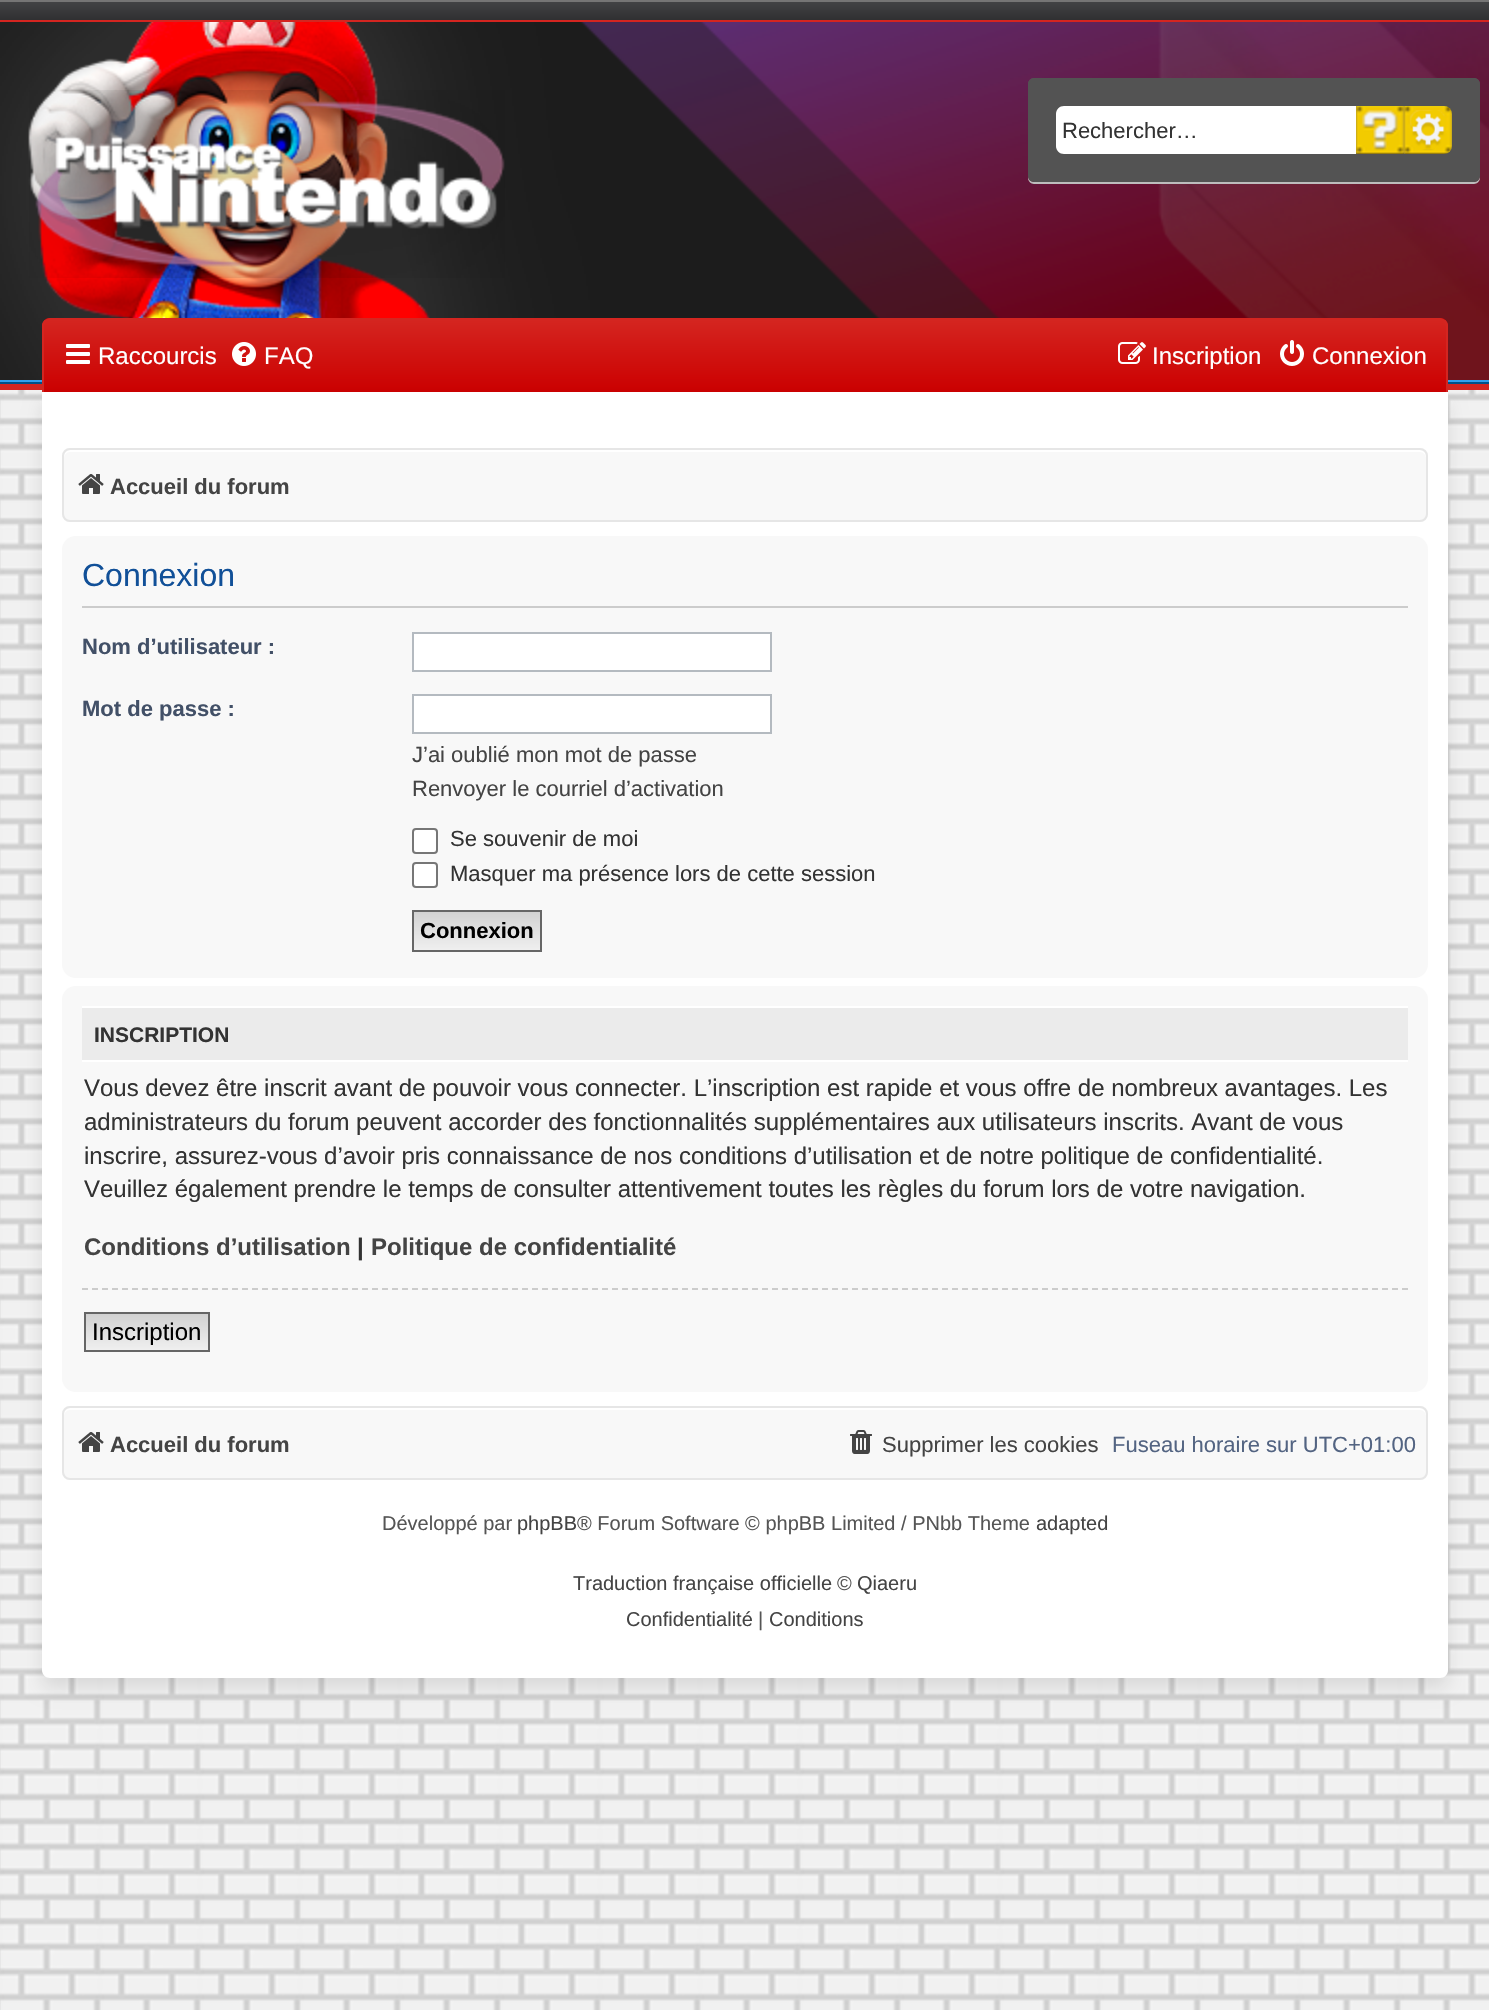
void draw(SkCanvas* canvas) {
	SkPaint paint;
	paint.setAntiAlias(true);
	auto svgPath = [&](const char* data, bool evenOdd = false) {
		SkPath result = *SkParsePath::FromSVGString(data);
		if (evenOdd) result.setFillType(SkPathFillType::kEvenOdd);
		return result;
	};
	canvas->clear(0xffffffff);
	canvas->drawImageRect(SkImages::DeferredFromEncodedData(SkData::MakeFromFileName("img1.png")), SkRect::MakeXYWH(0, 1680, 1489, 330), SkSamplingOptions());
	canvas->drawImageRect(SkImages::DeferredFromEncodedData(SkData::MakeFromFileName("img2.png")), SkRect::MakeXYWH(0, 390, 1489, 1290), SkSamplingOptions());
	{
		const SkColor colors[] = {0xff444547, 0xff2f2f31};
		const float stops[] = {0, 1};
		const SkPoint ends[] = {{745, 0}, {745, 20}};
		paint.setShader(SkGradientShader::MakeLinear(ends, colors, stops, 2, SkTileMode::kClamp));
		paint.setAlpha(255);
	}
	canvas->drawRect(SkRect::MakeXYWH(0, 2, 1489, 18), paint);
	paint.setShader(nullptr);
	paint.setColor(0xff757575);
	canvas->drawRect(SkRect::MakeXYWH(0, 0, 1489, 2), paint);
	paint.setColor(0xffd42520);
	canvas->drawRect(SkRect::MakeXYWH(0, 20, 1489, 2), paint);
	canvas->drawImageRect(SkImages::DeferredFromEncodedData(SkData::MakeFromFileName("img3.png")), SkRect::MakeXYWH(0, 22, 1489, 358), SkSamplingOptions());
	canvas->drawRect(SkRect::MakeXYWH(0, 384, 1489, 6), paint);
	paint.setColor(0xff33a0ed);
	canvas->drawRect(SkRect::MakeXYWH(0, 380, 1489, 2), paint);
	paint.setColor(0xff005189);
	canvas->drawRect(SkRect::MakeXYWH(0, 382, 1489, 2), paint);
	canvas->drawImageRect(SkImages::DeferredFromEncodedData(SkData::MakeFromFileName("img4.png")), SkRect::MakeXYWH(29, 90, 476, 188), SkSamplingOptions());
	paint.setColor(0xffbdbdbd);
	canvas->drawPath(svgPath("M1028 176V178C1028 181 1031 184 1034 184H1474C1477 184 1480 181 1480 178V176C1480 179 1477 182 1474 182H1034C1031 182 1028 179 1028 176Z"), paint);
	paint.setColor(0xff535353);
	canvas->drawRoundRect(SkRect::MakeXYWH(1028, 78, 452, 104), 6, 6, paint);
	canvas->drawPath(svgPath("M1034 80H1474C1477 80 1480 83 1480 86V84C1480 81 1477 78 1474 78H1034C1031 78 1028 81 1028 84V86C1028 83 1031 80 1034 80Z"), paint);
	paint.setColor(0xffffffff);
	canvas->drawPath(svgPath("M1064 106H1356V154H1064C1059.5 154 1056 150.5 1056 146V114C1056 109.5 1059.5 106 1064 106Z"), paint);
	SkFont f1(fontMgr->matchFamilyStyle("Liberation Sans", SkFontStyle::Normal()), 22);
	f1.setSubpixel(true);
	paint.setColor(0xff333333);
	canvas->drawString("Rechercher…", 1062, 138, f1, paint);
	canvas->drawImageRect(SkImages::DeferredFromEncodedData(SkData::MakeFromFileName("img5.png")), SkRect::MakeXYWH(1356, 106, 48, 48), SkSamplingOptions());
	canvas->drawImageRect(SkImages::DeferredFromEncodedData(SkData::MakeFromFileName("img6.png")), SkRect::MakeXYWH(1404, 106, 48, 48), SkSamplingOptions());
	canvas->save();
	canvas->clipPath(svgPath("M50 318H1440C1444.5 318 1448 321.5 1448 326V392H42V326C42 321.5 45.5 318 50 318Z"), true);
	{
		const SkColor colors[] = {0xffd42520, 0xffcc0000};
		const float stops[] = {0, 1};
		const SkPoint ends[] = {{745, 248}, {745, 320}};
		paint.setShader(SkGradientShader::MakeLinear(ends, colors, stops, 2, SkTileMode::kClamp));
		paint.setAlpha(255);
	}
	canvas->drawRect(SkRect::MakeXYWH(42, 318, 1406, 2), paint);
	{
		const SkColor colors[] = {0xffd42520, 0xffcc0000};
		const float stops[] = {0, 1};
		const SkPoint ends[] = {{745, 320}, {745, 392}};
		paint.setShader(SkGradientShader::MakeLinear(ends, colors, stops, 2, SkTileMode::kClamp));
		paint.setAlpha(255);
	}
	canvas->drawRect(SkRect::MakeXYWH(42, 320, 1406, 72), paint);
	canvas->restore();
	paint.setShader(nullptr);
	paint.setColor(0xffd42520);
	canvas->drawPath(svgPath("M50 318H1440C1444 318 1448 322 1448 326V392H42V326C42 322 46 318 50 318ZM50 320H1440C1443 320 1446 323 1446 326V392H44V326C44 323 47 320 50 320Z", true), paint);
	canvas->drawImageRect(SkImages::DeferredFromEncodedData(SkData::MakeFromFileName("img7.png")), SkRect::MakeXYWH(66, 344, 24, 20), SkSamplingOptions());
	SkFont f2(fontMgr->matchFamilyStyle("Liberation Sans", SkFontStyle::Normal()), 24);
	f2.setSubpixel(true);
	paint.setColor(0xffffffff);
	canvas->drawString("Raccourcis", 98, 364, f2, paint);
	canvas->drawImageRect(SkImages::DeferredFromEncodedData(SkData::MakeFromFileName("img8.png")), SkRect::MakeXYWH(232, 342, 24, 24), SkSamplingOptions());
	canvas->drawString("FAQ", 264, 364, f2, paint);
	canvas->drawImageRect(SkImages::DeferredFromEncodedData(SkData::MakeFromFileName("img9.png")), SkRect::MakeXYWH(1118, 342, 28, 22), SkSamplingOptions());
	canvas->drawString("Inscription", 1152, 364, f2, paint);
	canvas->drawImageRect(SkImages::DeferredFromEncodedData(SkData::MakeFromFileName("img10.png")), SkRect::MakeXYWH(1280, 340, 24, 26), SkSamplingOptions());
	canvas->drawString("Connexion", 1312, 364, f2, paint);
	paint.setColor(0x1a000000);
	paint.setMaskFilter(SkMaskFilter::MakeBlur(kNormal_SkBlurStyle, 9));
	canvas->drawRoundRect(SkRect::MakeXYWH(42, 402, 1406, 1286), 8, 8, paint);
	paint.setMaskFilter(nullptr);
	paint.setColor(0xffffffff);
	canvas->drawPath(svgPath("M42 392H1448V1670C1448 1674.5 1444.5 1678 1440 1678H50C45.5 1678 42 1674.5 42 1670Z"), paint);
	paint.setColor(0xfff8f8f8);
	canvas->drawRoundRect(SkRect::MakeXYWH(62, 448, 1366, 74), 8, 8, paint);
	paint.setColor(0xffffffff);
	canvas->drawPath(svgPath("M70 452H1420C1423 452 1426 455 1426 458V456C1426 453 1423 450 1420 450H70C67 450 64 453 64 456V458C64 455 67 452 70 452Z"), paint);
	paint.setStroke(true);
	paint.setStrokeWidth(2);
	paint.setColor(0xffe6e6e6);
	canvas->drawRoundRect(SkRect::MakeXYWH(63, 449, 1364, 72), 7, 7, paint);
	canvas->drawImageRect(SkImages::DeferredFromEncodedData(SkData::MakeFromFileName("img11.png")), SkRect::MakeXYWH(78, 474, 26, 20), SkSamplingOptions());
	SkFont f3(fontMgr->matchFamilyStyle("Liberation Sans", SkFontStyle::Bold()), 22);
	f3.setSubpixel(true);
	paint.setStroke(false);
	paint.setColor(0xff444444);
	canvas->drawString("Accueil du forum", 110, 494, f3, paint);
	paint.setColor(0xfff8f8f8);
	canvas->drawRoundRect(SkRect::MakeXYWH(62, 536, 1366, 442), 14, 14, paint);
	paint.setColor(0xffcccccc);
	canvas->drawRect(SkRect::MakeXYWH(82, 606, 1326, 2), paint);
	SkFont f4(fontMgr->matchFamilyStyle("Liberation Sans", SkFontStyle::Normal()), 32);
	f4.setSubpixel(true);
	paint.setColor(0xff115098);
	canvas->drawString("Connexion", 82, 586, f4, paint);
	paint.setColor(0xff425067);
	canvas->drawString("Nom d’utilisateur :", 82, 654, f3, paint);
	paint.setColor(0xffffffff);
	canvas->drawRect(SkRect::MakeXYWH(413, 633, 358, 38), paint);
	paint.setStroke(true);
	paint.setColor(0xffb4bac0);
	canvas->drawRect(SkRect::MakeXYWH(413, 633, 358, 38), paint);
	paint.setStroke(false);
	paint.setColor(0xff425067);
	canvas->drawString("Mot de passe :", 82, 716, f3, paint);
	paint.setColor(0xffffffff);
	canvas->drawRect(SkRect::MakeXYWH(413, 695, 358, 38), paint);
	paint.setStroke(true);
	paint.setColor(0xffb4bac0);
	canvas->drawRect(SkRect::MakeXYWH(413, 695, 358, 38), paint);
	paint.setStroke(false);
	paint.setColor(0xff444444);
	canvas->drawString("J’ai oublié mon mot de passe", 412, 762, f1, paint);
	canvas->drawString("Renvoyer le courriel d’activation", 412, 796, f1, paint);
	paint.setColor(0xffffffff);
	canvas->drawRoundRect(SkRect::MakeXYWH(413, 829, 24, 24), 3, 3, paint);
	paint.setStroke(true);
	paint.setColor(0xff767676);
	canvas->drawRoundRect(SkRect::MakeXYWH(413, 829, 24, 24), 3, 3, paint);
	paint.setStroke(false);
	paint.setColor(0xff333333);
	canvas->drawString("Se souvenir de moi", 450, 846, f1, paint);
	paint.setColor(0xffffffff);
	canvas->drawRoundRect(SkRect::MakeXYWH(413, 863, 24, 24), 3, 3, paint);
	paint.setStroke(true);
	paint.setColor(0xff767676);
	canvas->drawRoundRect(SkRect::MakeXYWH(413, 863, 24, 24), 3, 3, paint);
	paint.setStroke(false);
	paint.setColor(0xff333333);
	canvas->drawString("Masquer ma présence lors de cette session", 450, 881, f1, paint);
	{
		const SkColor colors[] = {0xffd2d2d2, 0xffefefef};
		const float stops[] = {0, 1};
		const SkPoint ends[] = {{477, 912}, {477, 950}};
		paint.setShader(SkGradientShader::MakeLinear(ends, colors, stops, 2, SkTileMode::kClamp));
		paint.setAlpha(255);
	}
	canvas->drawRect(SkRect::MakeXYWH(414, 912, 126, 38), paint);
	paint.setStroke(true);
	paint.setShader(nullptr);
	paint.setColor(0xff666666);
	canvas->drawRect(SkRect::MakeXYWH(413, 911, 128, 40), paint);
	paint.setStroke(false);
	paint.setColor(0xff000000);
	canvas->drawString("Connexion", 420, 938, f3, paint);
	paint.setColor(0xfff8f8f8);
	canvas->drawRoundRect(SkRect::MakeXYWH(62, 986, 1366, 406), 14, 14, paint);
	paint.setColor(0xffebebeb);
	canvas->drawRect(SkRect::MakeXYWH(82, 1008, 1326, 52), paint);
	paint.setColor(0xffffffff);
	canvas->drawRect(SkRect::MakeXYWH(82, 1006, 1326, 2), paint);
	canvas->drawRect(SkRect::MakeXYWH(82, 1060, 1326, 2), paint);
	SkFont f5(fontMgr->matchFamilyStyle("Liberation Sans", SkFontStyle::Bold()), 21);
	f5.setSubpixel(true);
	paint.setColor(0xff333333);
	canvas->drawString("INSCRIPTION", 94, 1042, f5, paint);
	canvas->drawString("Vous devez être inscrit avant de pouvoir vous connecter. L’inscription est rapide et vous offre de nombreux avantages. Les", 84, 1096, f2, paint);
	canvas->drawString("administrateurs du forum peuvent accorder des fonctionnalités supplémentaires aux utilisateurs inscrits. Avant de vous", 84, 1130, f2, paint);
	canvas->drawString("inscrire, assurez-vous d’avoir pris connaissance de nos conditions d’utilisation et de notre politique de confidentialité.", 84, 1164, f2, paint);
	canvas->drawString("Veuillez également prendre le temps de consulter attentivement toutes les règles du forum lors de votre navigation.", 84, 1197, f2, paint);
	SkFont f6(fontMgr->matchFamilyStyle("Liberation Sans", SkFontStyle::Bold()), 24);
	f6.setSubpixel(true);
	paint.setColor(0xff444444);
	canvas->drawString("Conditions d’utilisation", 84, 1255, f6, paint);
	paint.setColor(0xff333333);
	canvas->drawString("|", 357, 1255, f6, paint);
	paint.setColor(0xff444444);
	canvas->drawString("Politique de confidentialité", 371, 1255, f6, paint);
	paint.setStroke(true);
	paint.setColor(0xffcccccc);
	paint.setPathEffect(SkDashPathEffect::Make({{6, 4}}, 0));
	canvas->drawPath(svgPath("M82 1289H1408"), paint);
	paint.setPathEffect(nullptr);
	paint.setStroke(false);
	{
		const SkColor colors[] = {0xffd2d2d2, 0xffefefef};
		const float stops[] = {0, 1};
		const SkPoint ends[] = {{147, 1314}, {147, 1350}};
		paint.setShader(SkGradientShader::MakeLinear(ends, colors, stops, 2, SkTileMode::kClamp));
		paint.setAlpha(255);
	}
	canvas->drawRect(SkRect::MakeXYWH(86, 1314, 122, 36), paint);
	paint.setStroke(true);
	paint.setShader(nullptr);
	paint.setColor(0xff666666);
	canvas->drawRect(SkRect::MakeXYWH(85, 1313, 124, 38), paint);
	paint.setStroke(false);
	paint.setColor(0xff000000);
	canvas->drawString("Inscription", 92, 1340, f2, paint);
	paint.setColor(0xfff8f8f8);
	canvas->drawRoundRect(SkRect::MakeXYWH(62, 1406, 1366, 74), 8, 8, paint);
	paint.setColor(0xffffffff);
	canvas->drawPath(svgPath("M70 1410H1420C1423 1410 1426 1413 1426 1416V1414C1426 1411 1423 1408 1420 1408H70C67 1408 64 1411 64 1414V1416C64 1413 67 1410 70 1410Z"), paint);
	paint.setStroke(true);
	paint.setColor(0xffe6e6e6);
	canvas->drawRoundRect(SkRect::MakeXYWH(63, 1407, 1364, 72), 7, 7, paint);
	canvas->drawImageRect(SkImages::DeferredFromEncodedData(SkData::MakeFromFileName("img11.png")), SkRect::MakeXYWH(78, 1432, 26, 20), SkSamplingOptions());
	paint.setStroke(false);
	paint.setColor(0xff444444);
	canvas->drawString("Accueil du forum", 110, 1452, f3, paint);
	canvas->drawImageRect(SkImages::DeferredFromEncodedData(SkData::MakeFromFileName("img12.png")), SkRect::MakeXYWH(850, 1430, 22, 24), SkSamplingOptions());
	canvas->drawString("Supprimer les cookies", 882, 1452, f1, paint);
	paint.setColor(0xff536482);
	canvas->drawString("Fuseau horaire sur UTC+01:00", 1112, 1452, f1, paint);
	SkFont f7(fontMgr->matchFamilyStyle("Liberation Sans", SkFontStyle::Normal()), 20);
	f7.setSubpixel(true);
	paint.setColor(0xff555555);
	canvas->drawString("Développé par", 382, 1530, f7, paint);
	paint.setColor(0xff444444);
	canvas->drawString("phpBB", 517, 1530, f7, paint);
	paint.setColor(0xff555555);
	canvas->drawString("® Forum Software © phpBB Limited / PNbb Theme", 577, 1530, f7, paint);
	paint.setColor(0xff444444);
	canvas->drawString("adapted", 1036, 1530, f7, paint);
	canvas->drawString("Traduction française officielle", 573, 1590, f7, paint);
	paint.setColor(0xff555555);
	canvas->drawString("©", 837, 1590, f7, paint);
	paint.setColor(0xff444444);
	canvas->drawString("Qiaeru", 857, 1590, f7, paint);
	canvas->drawString("Confidentialité", 626, 1626, f7, paint);
	paint.setColor(0xff555555);
	canvas->drawString("|", 758, 1626, f7, paint);
	paint.setColor(0xff444444);
	canvas->drawString("Conditions", 769, 1626, f7, paint);
}
